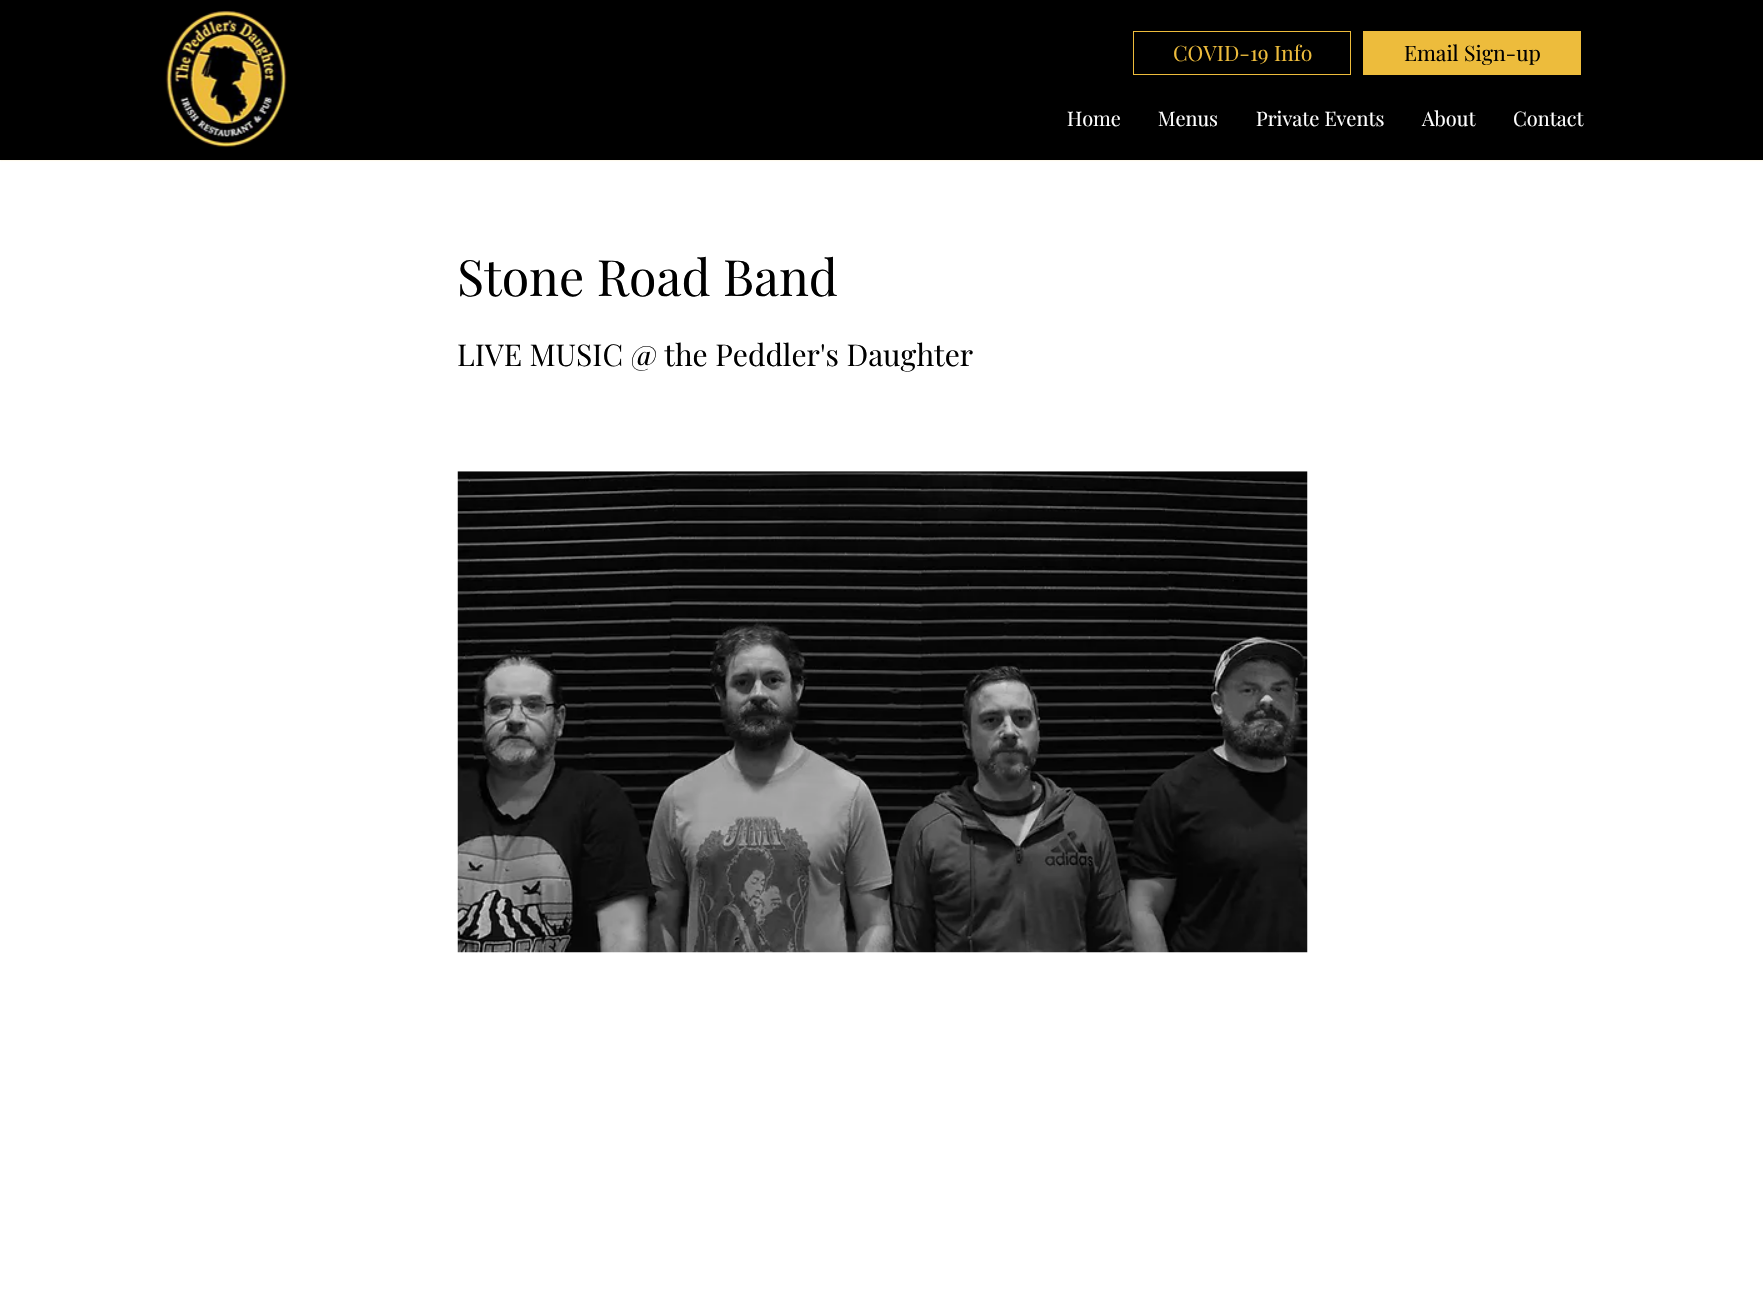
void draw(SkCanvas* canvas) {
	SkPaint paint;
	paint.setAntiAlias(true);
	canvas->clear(0xffffffff);
	paint.setColor(0x4dedbc3c);
	paint.setMaskFilter(SkMaskFilter::MakeBlur(kNormal_SkBlurStyle, 1));
	canvas->drawRect(SkRect::MakeXYWH(0, 0, 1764, 160), paint);
	paint.setMaskFilter(nullptr);
	paint.setColor(0xff000000);
	canvas->drawRect(SkRect::MakeXYWH(0, 0, 1763, 160), paint);
	canvas->drawImageRect(SkImages::DeferredFromEncodedData(SkData::MakeFromFileName("img1.png")), SkRect::MakeXYWH(165, 10, 122, 138), SkSamplingOptions());
	paint.setStroke(true);
	paint.setStrokeWidth(1);
	paint.setColor(0xffedbc3c);
	canvas->drawRect(SkRect::MakeXYWH(1133.5, 31.5, 217, 43), paint);
	SkFont f1(fontMgr->matchFamilyStyle("Playfair Display", SkFontStyle::Normal()), 21.25);
	f1.setSubpixel(true);
	paint.setStroke(false);
	canvas->drawString("COVID-19 Info", 1173, 61, f1, paint);
	canvas->drawRect(SkRect::MakeXYWH(1363, 31, 218, 44), paint);
	paint.setColor(0xff000000);
	canvas->drawString("Email Sign-up", 1404, 61, f1, paint);
	SkFont f2(fontMgr->matchFamilyStyle("Playfair Display", SkFontStyle::Normal()), 20);
	f2.setSubpixel(true);
	paint.setColor(0xffffffff);
	canvas->drawString("Home", 1067, 126, f2, paint);
	canvas->drawString("Menus", 1158, 126, f2, paint);
	canvas->drawString("Private Events", 1256, 126, f2, paint);
	canvas->drawString("About", 1422, 126, f2, paint);
	canvas->drawString("Contact", 1513, 126, f2, paint);
	SkFont f3(fontMgr->matchFamilyStyle("Playfair Display", SkFontStyle::Normal()), 50);
	f3.setSubpixel(true);
	paint.setColor(0xff000000);
	canvas->drawString("Stone Road Band", 457, 296, f3, paint);
	SkFont f4(fontMgr->matchFamilyStyle("Playfair Display", SkFontStyle::Normal()), 30);
	f4.setSubpixel(true);
	canvas->drawString("LIVE MUSIC @ the Peddler's Daughter", 457, 366, f4, paint);
	canvas->drawImageRect(SkImages::DeferredFromEncodedData(SkData::MakeFromFileName("img2.png")), SkRect::MakeXYWH(457, 471, 851, 482), SkSamplingOptions());
}
